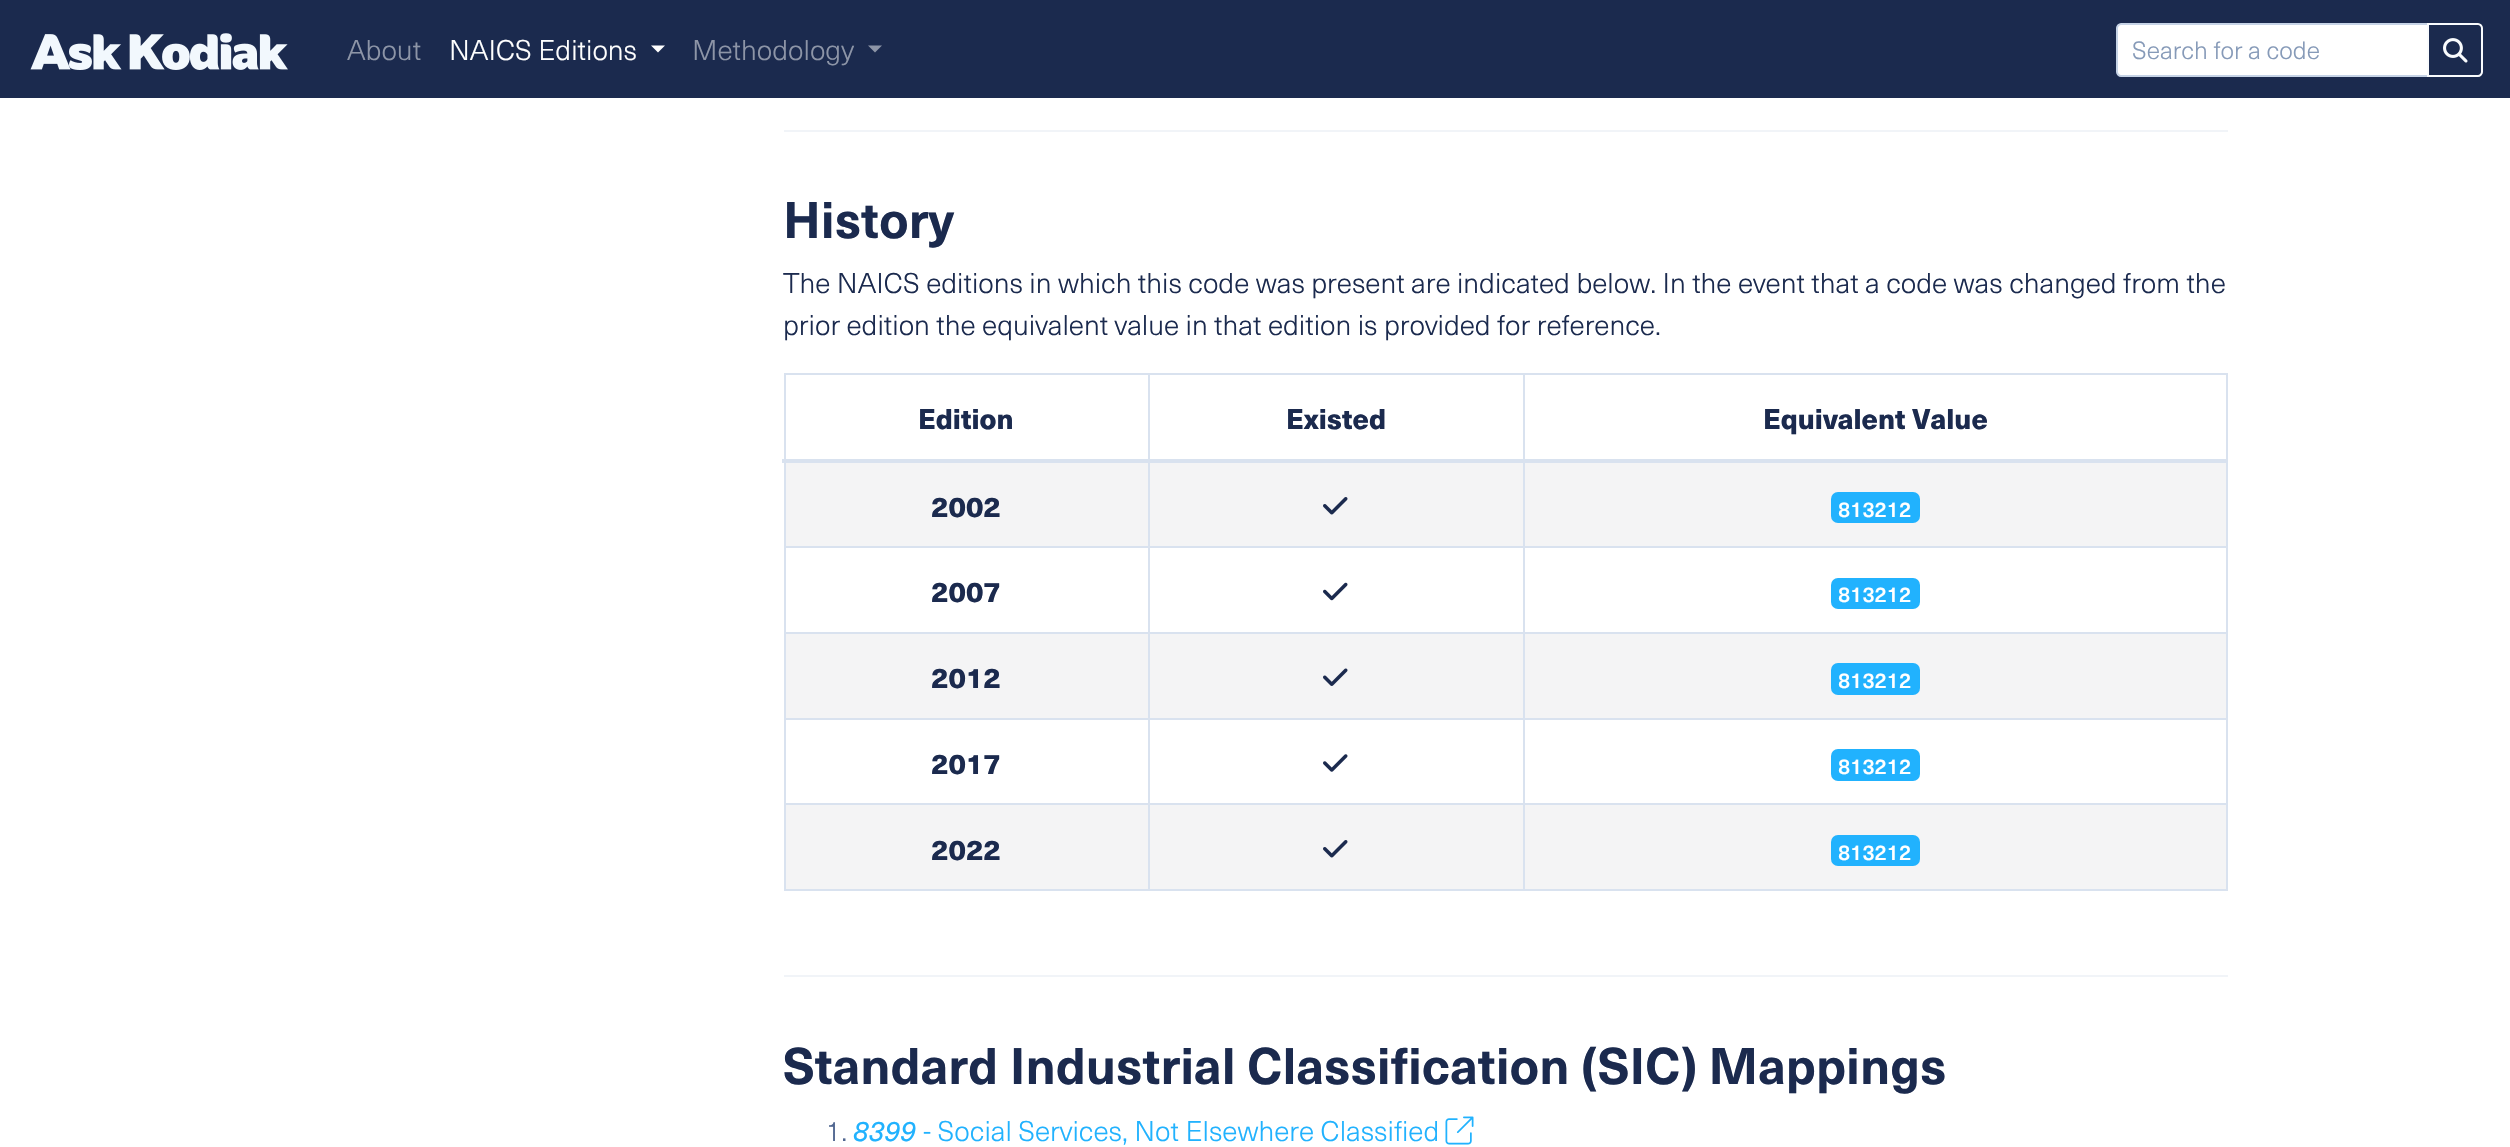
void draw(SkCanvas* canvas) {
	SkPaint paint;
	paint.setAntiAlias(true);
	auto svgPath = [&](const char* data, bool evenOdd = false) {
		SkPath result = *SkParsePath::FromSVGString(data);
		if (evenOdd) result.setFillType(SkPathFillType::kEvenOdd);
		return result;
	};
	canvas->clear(0xffffffff);
	paint.setColor(0xff1b2a4e);
	canvas->drawRect(SkRect::MakeXYWH(0, 0, 2510, 98), paint);
	canvas->drawImageRect(SkImages::DeferredFromEncodedData(SkData::MakeFromFileName("img1.png")), SkRect::MakeXYWH(30, 33, 258, 37), SkSamplingOptions());
	SkFont f1(fontMgr->matchFamilyStyle("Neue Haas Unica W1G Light", SkFontStyle(300, SkFontStyle::kNormal_Width, SkFontStyle::kUpright_Slant)), 28);
	f1.setSubpixel(true);
	paint.setColor(0xff8d95a7);
	canvas->drawString("About", 347, 60, f1, paint);
	paint.setColor(0xffffffff);
	canvas->drawString("NAICS Editions", 449, 60, f1, paint);
	canvas->drawPath(svgPath("M651 45.5H665L658 52.5Z"), paint);
	paint.setColor(0xff8d95a7);
	canvas->drawString("Methodology", 692, 60, f1, paint);
	canvas->drawPath(svgPath("M868 45.5H882L875 52.5Z"), paint);
	paint.setColor(0xffffffff);
	canvas->drawPath(svgPath("M2121 24H2428V76H2121C2119 76 2117 74 2117 72V28C2117 26 2119 24 2121 24Z"), paint);
	paint.setStroke(true);
	paint.setStrokeWidth(2);
	paint.setColor(0xffc6d3e6);
	canvas->drawPath(svgPath("M2121 24H2428V76H2121C2119 76 2117 74 2117 72V28C2117 26 2119 24 2121 24Z"), paint);
	SkFont f2(fontMgr->matchFamilyStyle("Neue Haas Unica W1G Light", SkFontStyle(300, SkFontStyle::kNormal_Width, SkFontStyle::kUpright_Slant)), 24.5);
	f2.setSubpixel(true);
	paint.setStroke(false);
	paint.setColor(0xff869ab8);
	canvas->drawString("Search for a code", 2132, 59, f2, paint);
	paint.setStroke(true);
	paint.setColor(0xfff9fbfd);
	canvas->drawPath(svgPath("M2428 24H2478C2480 24 2482 26 2482 28V72C2482 74 2480 76 2478 76H2428Z"), paint);
	canvas->drawImageRect(SkImages::DeferredFromEncodedData(SkData::MakeFromFileName("img2.png")), SkRect::MakeXYWH(2443, 38, 25, 25), SkSamplingOptions());
	paint.setStroke(false);
	paint.setColor(0xfff1f4f8);
	canvas->drawRect(SkRect::MakeXYWH(784, 130, 1444, 2), paint);
	canvas->drawRect(SkRect::MakeXYWH(784, 975, 1444, 2), paint);
	SkFont f3(fontMgr->matchFamilyStyle("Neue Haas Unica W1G", SkFontStyle::Bold()), 50.4);
	f3.setSubpixel(true);
	paint.setColor(0xff1b2a4e);
	canvas->drawString("History", 783, 238, f3, paint);
	canvas->drawString("The NAICS editions in which this code was present are indicated below. In the event that a code was changed from the", 783, 293, f1, paint);
	canvas->drawString("prior edition the equivalent value in that edition is provided for reference.", 783, 335, f1, paint);
	paint.setColor(0xffd9e2ef);
	canvas->drawRect(SkRect::MakeXYWH(784, 373, 1444, 2), paint);
	canvas->drawRect(SkRect::MakeXYWH(2226, 373, 2, 518), paint);
	canvas->drawRect(SkRect::MakeXYWH(784, 889, 1444, 2), paint);
	canvas->drawRect(SkRect::MakeXYWH(784, 373, 2, 518), paint);
	SkFont f4(fontMgr->matchFamilyStyle("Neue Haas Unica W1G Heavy", SkFontStyle(900, SkFontStyle::kNormal_Width, SkFontStyle::kUpright_Slant)), 28);
	f4.setSubpixel(true);
	paint.setColor(0xff1b2a4e);
	canvas->drawString("Edition", 918, 429, f4, paint);
	canvas->drawString("Existed", 1286, 429, f4, paint);
	paint.setColor(0xfff4f4f5);
	canvas->drawRect(SkRect::MakeXYWH(786, 463, 1440, 83), paint);
	paint.setColor(0xffd9e2ef);
	canvas->drawRect(SkRect::MakeXYWH(1523, 546, 705, 2), paint);
	canvas->drawRect(SkRect::MakeXYWH(1523, 632, 705, 2), paint);
	paint.setColor(0xfff4f4f5);
	canvas->drawRect(SkRect::MakeXYWH(786, 634, 1440, 84), paint);
	paint.setColor(0xffd9e2ef);
	canvas->drawRect(SkRect::MakeXYWH(1523, 718, 705, 2), paint);
	canvas->drawRect(SkRect::MakeXYWH(1523, 803, 705, 2), paint);
	paint.setColor(0xfff4f4f5);
	canvas->drawRect(SkRect::MakeXYWH(786, 805, 1440, 84), paint);
	paint.setColor(0xffd9e2ef);
	canvas->drawRect(SkRect::MakeXYWH(1523, 803, 2, 88), paint);
	canvas->drawRect(SkRect::MakeXYWH(1148, 803, 376, 2), paint);
	canvas->drawRect(SkRect::MakeXYWH(1523, 718, 2, 87), paint);
	canvas->drawRect(SkRect::MakeXYWH(1148, 718, 376, 2), paint);
	canvas->drawRect(SkRect::MakeXYWH(1523, 632, 2, 87), paint);
	canvas->drawRect(SkRect::MakeXYWH(1148, 632, 376, 2), paint);
	canvas->drawRect(SkRect::MakeXYWH(1523, 546, 2, 88), paint);
	canvas->drawRect(SkRect::MakeXYWH(1148, 546, 376, 2), paint);
	canvas->drawRect(SkRect::MakeXYWH(1148, 803, 2, 88), paint);
	canvas->drawRect(SkRect::MakeXYWH(784, 803, 366, 2), paint);
	canvas->drawRect(SkRect::MakeXYWH(1148, 718, 2, 87), paint);
	canvas->drawRect(SkRect::MakeXYWH(784, 718, 366, 2), paint);
	canvas->drawRect(SkRect::MakeXYWH(1148, 632, 2, 87), paint);
	canvas->drawRect(SkRect::MakeXYWH(784, 632, 366, 2), paint);
	canvas->drawRect(SkRect::MakeXYWH(1148, 546, 2, 88), paint);
	canvas->drawRect(SkRect::MakeXYWH(784, 546, 366, 2), paint);
	canvas->drawRect(SkRect::MakeXYWH(1148, 373, 2, 175), paint);
	canvas->drawRect(SkRect::MakeXYWH(1523, 373, 2, 175), paint);
	canvas->drawRect(SkRect::MakeXYWH(782, 459, 1446, 4), paint);
	paint.setColor(0xff1b2a4e);
	canvas->drawString("Equivalent Value", 1763, 429, f4, paint);
	canvas->drawString("2002", 931, 517, f4, paint);
	canvas->drawImageRect(SkImages::DeferredFromEncodedData(SkData::MakeFromFileName("img3.png")), SkRect::MakeXYWH(1323, 497, 25, 18), SkSamplingOptions());
	paint.setColor(0xff21b2fe);
	canvas->drawRoundRect(SkRect::MakeXYWH(1831, 492, 89, 31), 7, 7, paint);
	SkFont f5(fontMgr->matchFamilyStyle("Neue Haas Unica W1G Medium", SkFontStyle(500, SkFontStyle::kNormal_Width, SkFontStyle::kUpright_Slant)), 21);
	f5.setSubpixel(true);
	paint.setColor(0xffffffff);
	canvas->drawString("813212", 1838, 517, f5, paint);
	paint.setColor(0xff1b2a4e);
	canvas->drawString("2007", 931, 602, f4, paint);
	canvas->drawImageRect(SkImages::DeferredFromEncodedData(SkData::MakeFromFileName("img4.png")), SkRect::MakeXYWH(1323, 582, 25, 19), SkSamplingOptions());
	paint.setColor(0xff21b2fe);
	canvas->drawRoundRect(SkRect::MakeXYWH(1831, 578, 89, 31), 7, 7, paint);
	paint.setColor(0xffffffff);
	canvas->drawString("813212", 1838, 602, f5, paint);
	paint.setColor(0xff1b2a4e);
	canvas->drawString("2012", 931, 688, f4, paint);
	canvas->drawImageRect(SkImages::DeferredFromEncodedData(SkData::MakeFromFileName("img5.png")), SkRect::MakeXYWH(1323, 668, 25, 18), SkSamplingOptions());
	paint.setColor(0xff21b2fe);
	canvas->drawRoundRect(SkRect::MakeXYWH(1831, 663, 89, 32), 7, 7, paint);
	paint.setColor(0xffffffff);
	canvas->drawString("813212", 1838, 688, f5, paint);
	paint.setColor(0xff1b2a4e);
	canvas->drawString("2017", 931, 774, f4, paint);
	canvas->drawImageRect(SkImages::DeferredFromEncodedData(SkData::MakeFromFileName("img6.png")), SkRect::MakeXYWH(1323, 754, 25, 18), SkSamplingOptions());
	paint.setColor(0xff21b2fe);
	canvas->drawRoundRect(SkRect::MakeXYWH(1831, 749, 89, 32), 7, 7, paint);
	paint.setColor(0xffffffff);
	canvas->drawString("813212", 1838, 774, f5, paint);
	paint.setColor(0xff1b2a4e);
	canvas->drawString("2022", 931, 860, f4, paint);
	canvas->drawImageRect(SkImages::DeferredFromEncodedData(SkData::MakeFromFileName("img3.png")), SkRect::MakeXYWH(1323, 840, 25, 18), SkSamplingOptions());
	paint.setColor(0xff21b2fe);
	canvas->drawRoundRect(SkRect::MakeXYWH(1831, 835, 89, 31), 7, 7, paint);
	paint.setColor(0xffffffff);
	canvas->drawString("813212", 1838, 860, f5, paint);
	paint.setColor(0xff1b2a4e);
	canvas->drawString("Standard Industrial Classification (SIC) Mappings", 783, 1084, f3, paint);
	paint.setColor(0xff506690);
	canvas->drawString("1.", 826, 1141, f1, paint);
	SkFont f6(fontMgr->matchFamilyStyle("Neue Haas Unica W1G", SkFontStyle::Italic()), 28);
	f6.setSubpixel(true);
	paint.setColor(0xff21b2fe);
	canvas->drawString("8399", 853, 1141, f6, paint);
	canvas->drawString("- Social Services, Not Elsewhere Classified", 923, 1141, f1, paint);
	canvas->drawImageRect(SkImages::DeferredFromEncodedData(SkData::MakeFromFileName("img7.png")), SkRect::MakeXYWH(1445, 1116, 29, 29), SkSamplingOptions());
}
